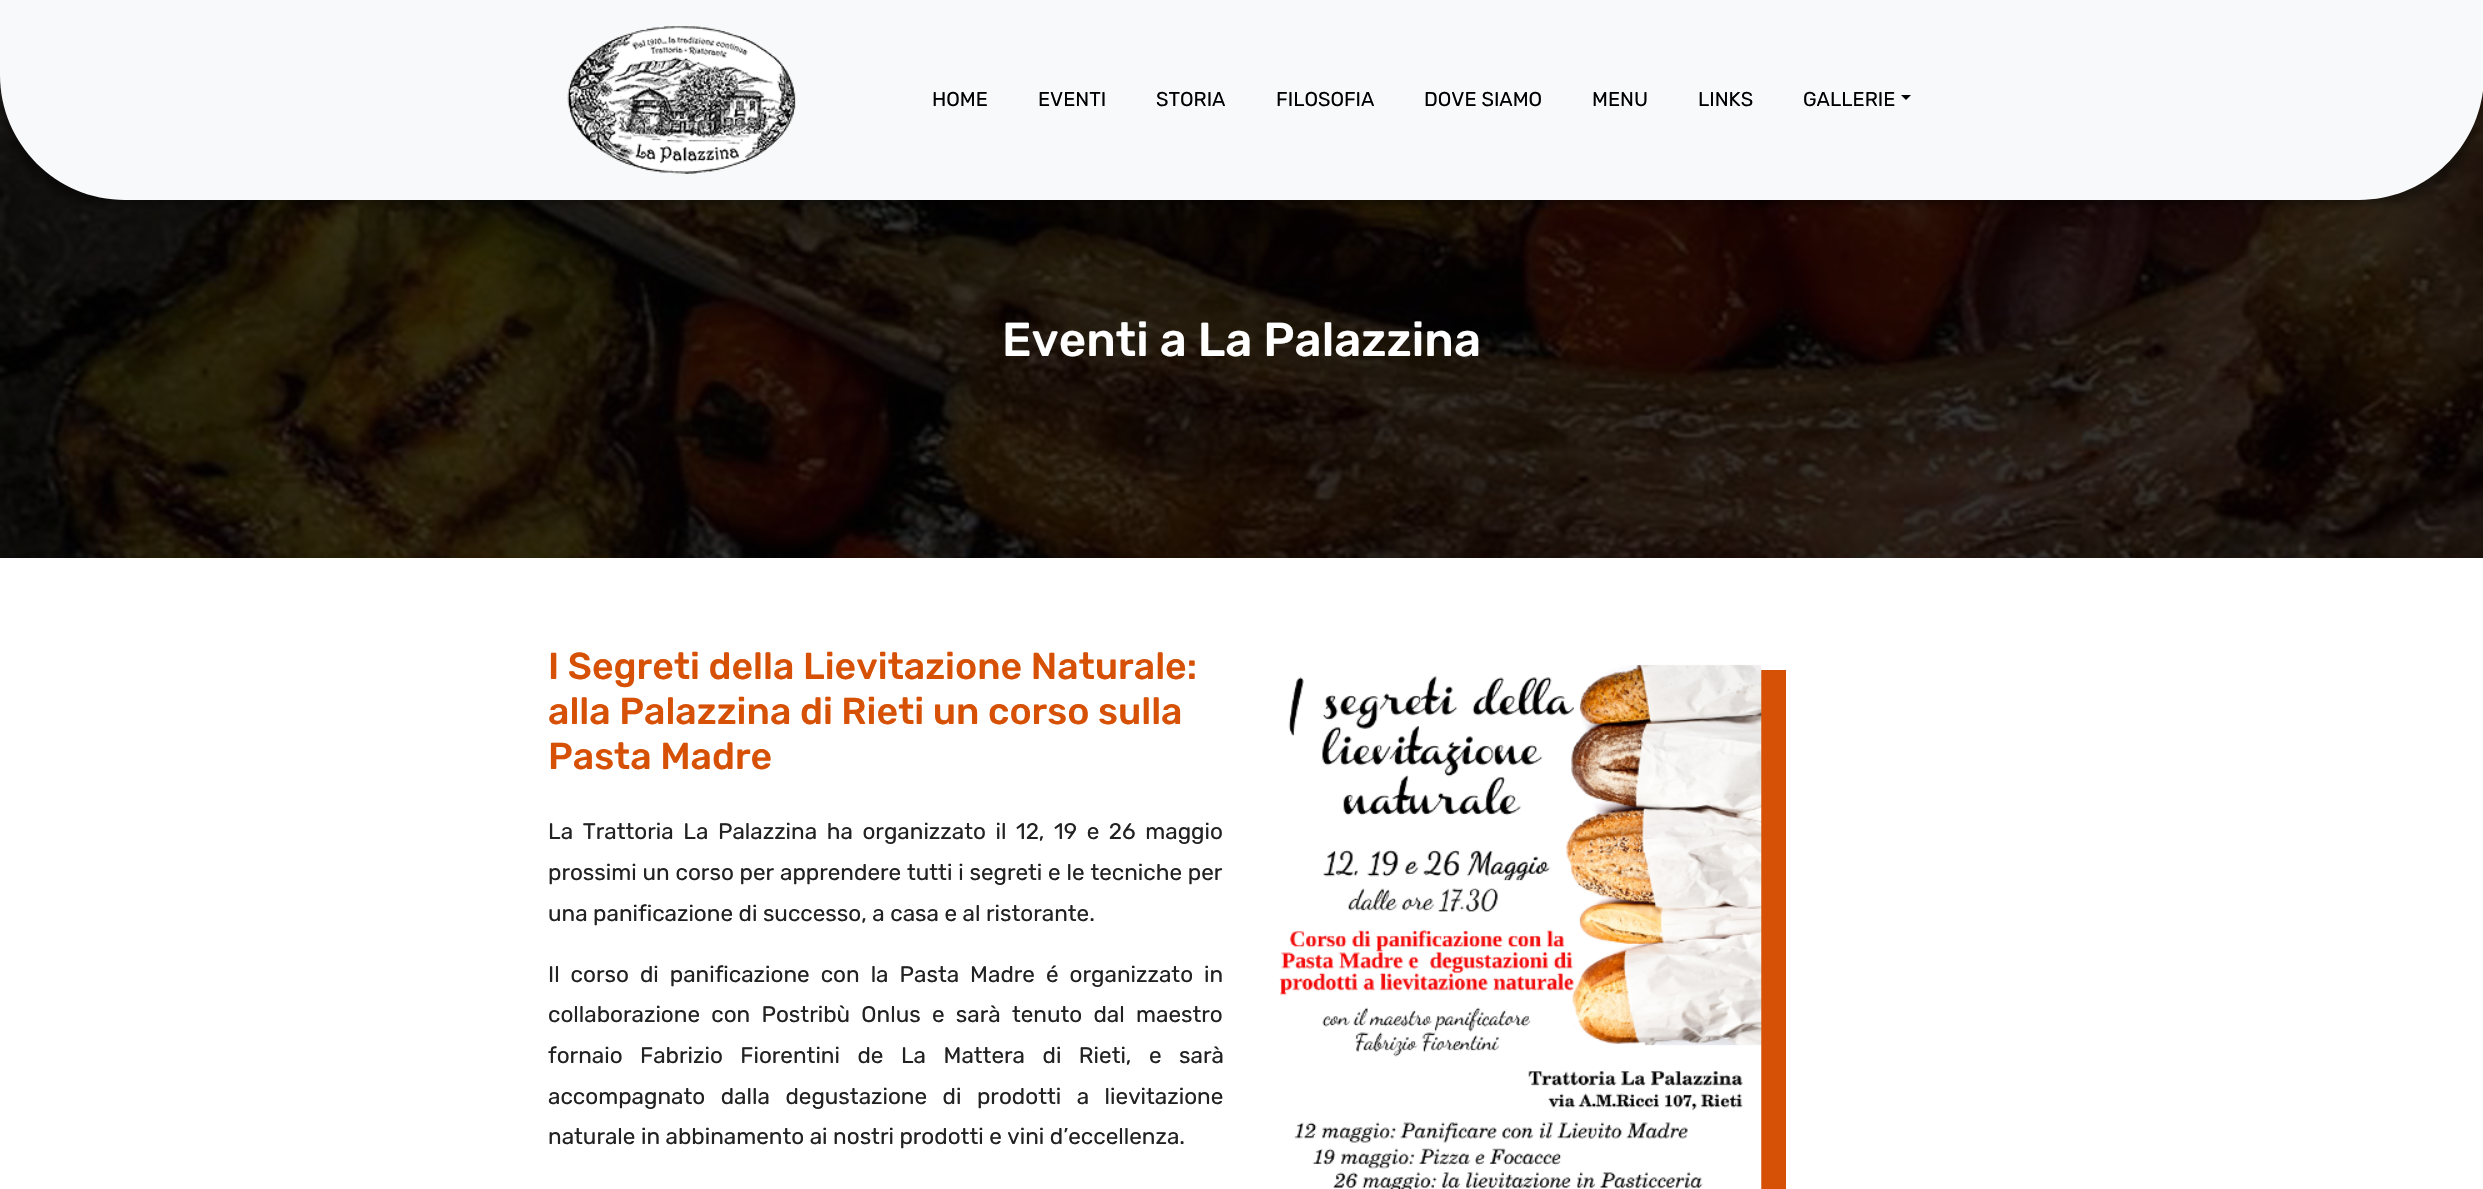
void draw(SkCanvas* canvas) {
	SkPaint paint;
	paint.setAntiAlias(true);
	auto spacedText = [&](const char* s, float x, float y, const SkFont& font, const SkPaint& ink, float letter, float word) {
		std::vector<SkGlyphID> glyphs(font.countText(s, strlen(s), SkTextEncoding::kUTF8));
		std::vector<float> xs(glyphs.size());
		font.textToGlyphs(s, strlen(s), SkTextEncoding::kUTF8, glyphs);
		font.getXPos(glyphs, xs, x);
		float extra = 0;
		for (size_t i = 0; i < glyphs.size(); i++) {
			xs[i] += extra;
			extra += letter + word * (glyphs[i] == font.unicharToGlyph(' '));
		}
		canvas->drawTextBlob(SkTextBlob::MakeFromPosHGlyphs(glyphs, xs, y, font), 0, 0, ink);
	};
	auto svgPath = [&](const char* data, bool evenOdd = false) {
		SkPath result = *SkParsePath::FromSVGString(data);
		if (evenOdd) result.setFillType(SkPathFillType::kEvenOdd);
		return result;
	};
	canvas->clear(0xffffffff);
	canvas->drawImageRect(SkImages::DeferredFromEncodedData(SkData::MakeFromFileName("img2.png")), SkRect::MakeXYWH(0, 75, 2483, 483), SkSamplingOptions());
	paint.setColor(0x66000000);
	paint.setMaskFilter(SkMaskFilter::MakeBlur(kNormal_SkBlurStyle, 4));
	canvas->drawRoundRect(SkRect::MakeXYWH(8, 18, 2468, 185), 118, 118, paint);
	paint.setMaskFilter(nullptr);
	paint.setColor(0xfff8f9fa);
	canvas->drawPath(svgPath("M0 0H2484V75C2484 144 2428 200 2359 200H125C56 200 0 144 0 75Z"), paint);
	canvas->drawImageRect(SkImages::DeferredFromEncodedData(SkData::MakeFromFileName("img1.png")), SkRect::MakeXYWH(567, 26, 229, 148), SkSamplingOptions());
	SkFont f1(fontMgr->matchFamilyStyle("Rubik", SkFontStyle::Normal()), 20);
	f1.setSubpixel(true);
	paint.setColor(0xff010101);
	canvas->drawString("HOME", 932, 106, f1, paint);
	canvas->drawString("EVENTI", 1038, 106, f1, paint);
	canvas->drawString("STORIA", 1156, 106, f1, paint);
	canvas->drawString("FILOSOFIA", 1276, 106, f1, paint);
	canvas->drawString("DOVE SIAMO", 1424, 106, f1, paint);
	canvas->drawString("MENU", 1592, 106, f1, paint);
	canvas->drawString("LINKS", 1698, 106, f1, paint);
	canvas->drawString("GALLERIE", 1803, 106, f1, paint);
	canvas->drawPath(svgPath("M1901 95H1911L1906 100Z"), paint);
	SkFont f2(fontMgr->matchFamilyStyle("Rubik", SkFontStyle(500, SkFontStyle::kNormal_Width, SkFontStyle::kUpright_Slant)), 47.5);
	f2.setSubpixel(true);
	paint.setColor(0xffffffff);
	canvas->drawString("Eventi a La Palazzina", 1002, 356, f2, paint);
	SkFont f3(fontMgr->matchFamilyStyle("Rubik", SkFontStyle(500, SkFontStyle::kNormal_Width, SkFontStyle::kUpright_Slant)), 37.5);
	f3.setSubpixel(true);
	paint.setColor(0xffd65106);
	canvas->drawString("I Segreti della Lievitazione Naturale:", 548, 679, f3, paint);
	canvas->drawString("alla Palazzina di Rieti un corso sulla", 548, 724, f3, paint);
	canvas->drawString("Pasta Madre", 548, 769, f3, paint);
	SkFont f4(fontMgr->matchFamilyStyle("Rubik", SkFontStyle::Normal()), 22.5);
	f4.setSubpixel(true);
	paint.setColor(0xff222222);
	spacedText("La Trattoria La Palazzina ha organizzato il 12, 19 e 26 maggio", 548, 839, f4, paint, 0, 4.1);
	spacedText("prossimi un corso per apprendere tutti i segreti e le tecniche per", 548, 880, f4, paint, 0, 0.3);
	canvas->drawString("una panificazione di successo, a casa e al ristorante.", 548, 921, f4, paint);
	spacedText("Il corso di panificazione con la Pasta Madre", 548, 982, f4, paint, 0, 5.5);
	spacedText("é organizzato in", 1046, 982, f4, paint, 0, 5.5);
	spacedText("collaborazione con Postribù Onlus e sarà tenuto dal maestro", 548, 1022, f4, paint, 0, 5.75);
	spacedText("fornaio Fabrizio Fiorentini de La Mattera di Rieti, e sarà", 548, 1063, f4, paint, 0, 12);
	spacedText("accompagnato dalla degustazione di prodotti a lievitazione", 548, 1104, f4, paint, 0, 10);
	canvas->drawString("naturale in abbinamento ai nostri prodotti e vini d’eccellenza.", 548, 1144, f4, paint);
	paint.setColor(0xffd65106);
	canvas->drawPath(svgPath("M1286 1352V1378H1786V670H1761V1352Z"), paint);
	canvas->drawImageRect(SkImages::DeferredFromEncodedData(SkData::MakeFromFileName("img3.png")), SkRect::MakeXYWH(1279, 664, 483, 525), SkSamplingOptions());
}
